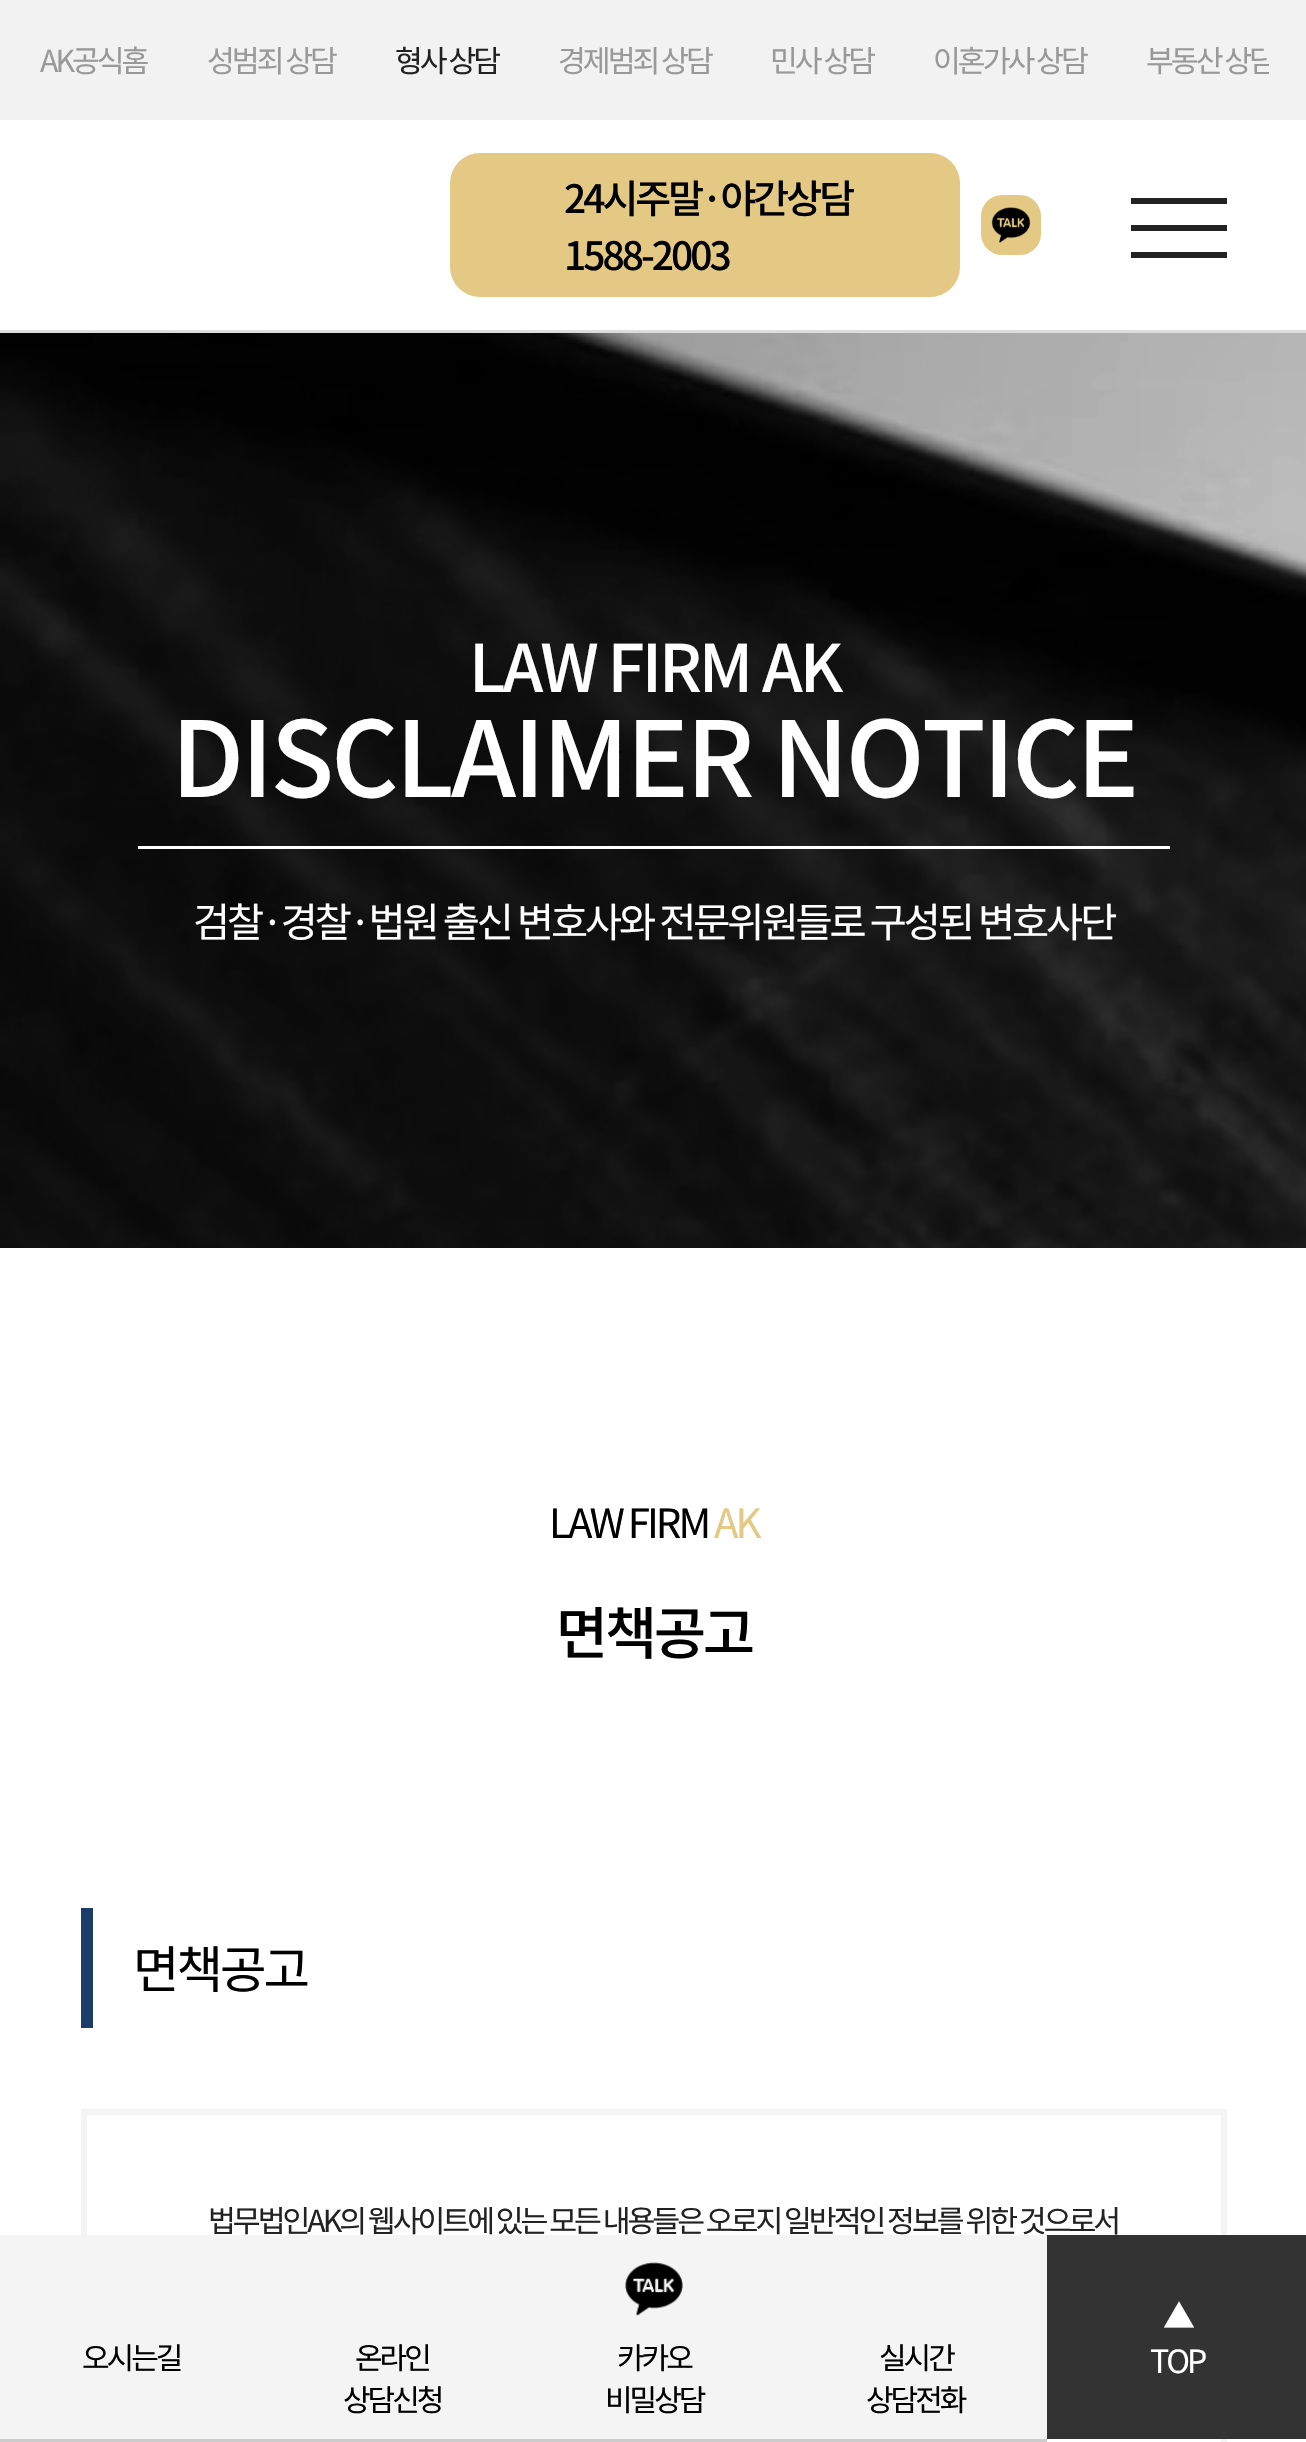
void draw(SkCanvas* canvas) {
	SkPaint paint;
	paint.setAntiAlias(true);
	auto spacedText = [&](const char* s, float x, float y, const SkFont& font, const SkPaint& ink, float letter, float word) {
		std::vector<SkGlyphID> glyphs(font.countText(s, strlen(s), SkTextEncoding::kUTF8));
		std::vector<float> xs(glyphs.size());
		font.textToGlyphs(s, strlen(s), SkTextEncoding::kUTF8, glyphs);
		font.getXPos(glyphs, xs, x);
		float extra = 0;
		for (size_t i = 0; i < glyphs.size(); i++) {
			xs[i] += extra;
			extra += letter + word * (glyphs[i] == font.unicharToGlyph(' '));
		}
		canvas->drawTextBlob(SkTextBlob::MakeFromPosHGlyphs(glyphs, xs, y, font), 0, 0, ink);
	};
	canvas->clear(0xffffffff);
	paint.setColor(0xffdddddd);
	canvas->drawRect(SkRect::MakeXYWH(0, 330, 1306, 3), paint);
	paint.setColor(0xfff2f2f2);
	canvas->drawRect(SkRect::MakeXYWH(0, 0, 1306, 120), paint);
	SkFont f1(fontMgr->matchFamilyStyle("Noto Sans KR", SkFontStyle::Normal()), 30.25);
	f1.setSubpixel(true);
	paint.setColor(0xff999999);
	spacedText("AK공식홈", 40, 72, f1, paint, -3, 0);
	spacedText("성범죄 상담", 207, 72, f1, paint, -3, 0);
	paint.setColor(0xff222222);
	spacedText("형사 상담", 395, 72, f1, paint, -3, 0);
	paint.setColor(0xff999999);
	spacedText("경제범죄 상담", 558, 72, f1, paint, -3, 0);
	spacedText("민사 상담", 770, 72, f1, paint, -3, 0);
	spacedText("이혼가사 상담", 933, 72, f1, paint, -3, 0);
	canvas->save();
	canvas->clipRect(SkRect::MakeXYWH(39, 0, 1230, 120));
	spacedText("부동산 상담", 1146, 72, f1, paint, -3, 0);
	canvas->restore();
	paint.setColor(0xffe4c984);
	canvas->drawRoundRect(SkRect::MakeXYWH(450, 153, 510, 144), 30, 30, paint);
	SkFont f2(fontMgr->matchFamilyStyle("Noto Sans KR", SkFontStyle(500, SkFontStyle::kNormal_Width, SkFontStyle::kUpright_Slant)), 39);
	f2.setSubpixel(true);
	paint.setColor(0xff000000);
	spacedText("24시주말·야간상담", 564, 213, f2, paint, -3, 0);
	spacedText("1588-2003", 564, 270, f2, paint, -3, 0);
	paint.setColor(0xffe4c984);
	canvas->drawRoundRect(SkRect::MakeXYWH(981, 195, 60, 60), 21, 21, paint);
	canvas->drawImageRect(SkImages::DeferredFromEncodedData(SkData::MakeFromFileName("img1.png")), SkRect::MakeXYWH(991, 207, 40, 36), SkSamplingOptions());
	paint.setColor(0xff222222);
	canvas->drawRect(SkRect::MakeXYWH(1131, 198, 96, 6), paint);
	canvas->drawRect(SkRect::MakeXYWH(1131, 225, 96, 6), paint);
	canvas->drawRect(SkRect::MakeXYWH(1131, 252, 96, 6), paint);
	canvas->drawImageRect(SkImages::DeferredFromEncodedData(SkData::MakeFromFileName("img2.png")), SkRect::MakeXYWH(0, 333, 1306, 915), SkSamplingOptions());
	SkFont f3(fontMgr->matchFamilyStyle("Noto Sans KR", SkFontStyle(500, SkFontStyle::kNormal_Width, SkFontStyle::kUpright_Slant)), 65.5);
	f3.setSubpixel(true);
	paint.setColor(0xffffffff);
	spacedText("LAW FIRM AK", 469, 692, f3, paint, -3, 0);
	SkFont f4(fontMgr->matchFamilyStyle("Noto Sans KR", SkFontStyle(500, SkFontStyle::kNormal_Width, SkFontStyle::kUpright_Slant)), 104.6);
	f4.setSubpixel(true);
	spacedText("DISCLAIMER NOTICE", 171, 797, f4, paint, -3, 0);
	canvas->drawRect(SkRect::MakeXYWH(138, 846, 1032, 3), paint);
	SkFont f5(fontMgr->matchFamilyStyle("Noto Sans KR", SkFontStyle::Normal()), 40.3);
	f5.setSubpixel(true);
	spacedText("검찰·경찰·법원 출신 변호사와 전문위원들로 구성된 변호사단", 193, 937, f5, paint, -3, 0);
	paint.setColor(0xff000000);
	spacedText("LAW FIRM", 549, 1538, f5, paint, -3, 0);
	paint.setColor(0xffe4c984);
	spacedText("AK", 714, 1538, f5, paint, -3, 0);
	SkFont f6(fontMgr->matchFamilyStyle("Noto Sans KR", SkFontStyle(500, SkFontStyle::kNormal_Width, SkFontStyle::kUpright_Slant)), 56.5);
	f6.setSubpixel(true);
	paint.setColor(0xff000000);
	spacedText("면책공고", 556, 1654, f6, paint, -3, 0);
	paint.setColor(0xff1c3c69);
	canvas->drawRect(SkRect::MakeXYWH(81, 1908, 12, 120), paint);
	SkFont f7(fontMgr->matchFamilyStyle("Noto Sans KR", SkFontStyle::Normal()), 50.5);
	f7.setSubpixel(true);
	paint.setColor(0xff000000);
	spacedText("면책공고", 133, 1988, f7, paint, -3, 0);
	paint.setStroke(true);
	paint.setStrokeWidth(6);
	paint.setColor(0xfff4f4f4);
	canvas->drawRect(SkRect::MakeXYWH(84, 2112, 1140, 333), paint);
	paint.setStroke(false);
	paint.setColor(0xff222222);
	spacedText("법무법인AK의 웹사이트에 있는 모든 내용들은 오로지 일반적인 정보를 위한 것으로서", 208, 2232, f1, paint, -3, 0);
	paint.setColor(0xfff4f4f4);
	canvas->drawRect(SkRect::MakeXYWH(0, 2235, 1047, 204), paint);
	paint.setColor(0xffcccccc);
	canvas->drawRect(SkRect::MakeXYWH(0, 2439, 1047, 3), paint);
	SkFont f8(fontMgr->matchFamilyStyle("Noto Sans KR", SkFontStyle::Normal()), 30);
	f8.setSubpixel(true);
	paint.setColor(0xff000000);
	spacedText("오시는길", 82, 2369, f8, paint, -3, 0);
	spacedText("온라인", 355, 2369, f8, paint, -3, 0);
	spacedText("상담신청", 343, 2411, f8, paint, -3, 0);
	canvas->drawImageRect(SkImages::DeferredFromEncodedData(SkData::MakeFromFileName("img3.png")), SkRect::MakeXYWH(625, 2262, 58, 54), SkSamplingOptions());
	spacedText("카카오", 617, 2369, f8, paint, -3, 0);
	spacedText("비밀상담", 605, 2411, f8, paint, -3, 0);
	spacedText("실시간", 879, 2369, f8, paint, -3, 0);
	spacedText("상담전화", 866, 2411, f8, paint, -3, 0);
	paint.setColor(0xff333333);
	canvas->drawRect(SkRect::MakeXYWH(1047, 2235, 259, 204), paint);
	SkFont f9(fontMgr->matchFamilyStyle("Noto Sans KR", SkFontStyle::Normal()), 32);
	f9.setSubpixel(true);
	paint.setColor(0xffffffff);
	spacedText("▲", 1163, 2328, f9, paint, -3, 0);
	spacedText("TOP", 1150, 2373, f9, paint, -3, 0);
}
